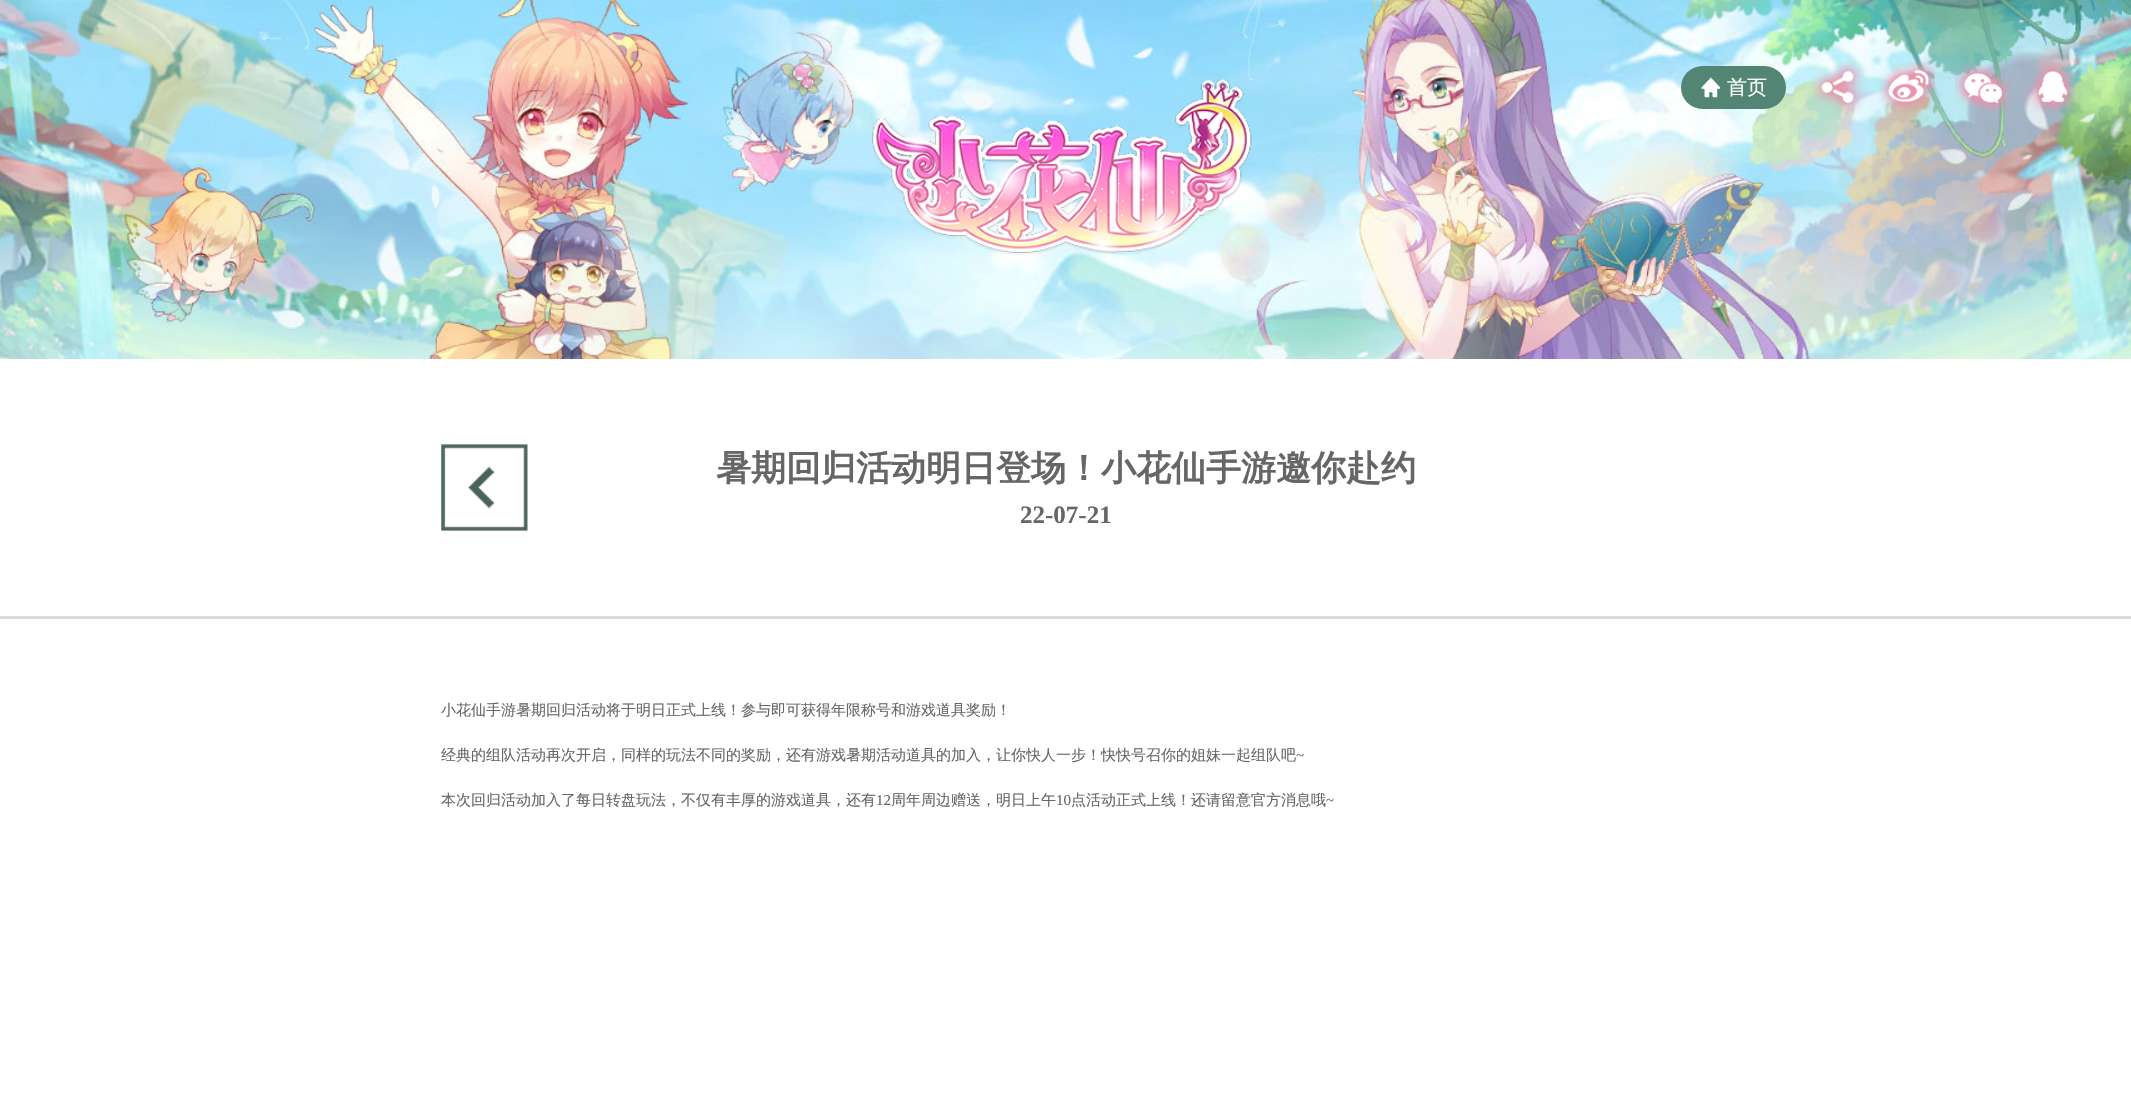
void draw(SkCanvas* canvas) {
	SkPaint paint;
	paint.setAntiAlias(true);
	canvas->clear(0xffffffff);
	canvas->drawImageRect(SkImages::DeferredFromEncodedData(SkData::MakeFromFileName("img1.png")), SkRect::MakeXYWH(0, 0, 2131, 359), SkSamplingOptions());
	canvas->drawImageRect(SkImages::DeferredFromEncodedData(SkData::MakeFromFileName("img2.png")), SkRect::MakeXYWH(872, 79, 386, 181), SkSamplingOptions());
	paint.setColor(0xff538574);
	canvas->drawRoundRect(SkRect::MakeXYWH(1681, 66, 105, 43), 21.5, 21.5, paint);
	canvas->drawImageRect(SkImages::DeferredFromEncodedData(SkData::MakeFromFileName("img3.png")), SkRect::MakeXYWH(1701, 77, 19, 21), SkSamplingOptions());
	SkFont f1(fontMgr->matchFamilyStyle("WenQuanYi Zen Hei", SkFontStyle(500, SkFontStyle::kNormal_Width, SkFontStyle::kUpright_Slant)), 20);
	f1.setSubpixel(true);
	paint.setColor(0xffffffff);
	canvas->drawString("首页", 1727, 94, f1, paint);
	canvas->drawImageRect(SkImages::DeferredFromEncodedData(SkData::MakeFromFileName("img4.png")), SkRect::MakeXYWH(1812, 61, 56, 52), SkSamplingOptions());
	canvas->drawImageRect(SkImages::DeferredFromEncodedData(SkData::MakeFromFileName("img5.png")), SkRect::MakeXYWH(1879, 61, 56, 51), SkSamplingOptions());
	canvas->drawImageRect(SkImages::DeferredFromEncodedData(SkData::MakeFromFileName("img6.png")), SkRect::MakeXYWH(1955, 62, 56, 51), SkSamplingOptions());
	canvas->drawImageRect(SkImages::DeferredFromEncodedData(SkData::MakeFromFileName("img7.png")), SkRect::MakeXYWH(2025, 62, 56, 51), SkSamplingOptions());
	paint.setColor(0xffdadada);
	canvas->drawRect(SkRect::MakeXYWH(0, 616, 2131, 3), paint);
	canvas->drawImageRect(SkImages::DeferredFromEncodedData(SkData::MakeFromFileName("img8.png")), SkRect::MakeXYWH(441, 444, 87, 87), SkSamplingOptions());
	SkFont f2(fontMgr->matchFamilyStyle("WenQuanYi Zen Hei", SkFontStyle::Bold()), 35);
	f2.setSubpixel(true);
	paint.setColor(0xff666666);
	canvas->drawString("暑期回归活动明日登场！小花仙手游邀你赴约", 716, 480, f2, paint);
	SkFont f3(fontMgr->matchFamilyStyle("Liberation Serif", SkFontStyle::Bold()), 25);
	f3.setSubpixel(true);
	canvas->drawString("22-07-21", 1020, 523, f3, paint);
	SkFont f4(fontMgr->matchFamilyStyle("WenQuanYi Zen Hei", SkFontStyle(500, SkFontStyle::kNormal_Width, SkFontStyle::kUpright_Slant)), 15);
	f4.setSubpixel(true);
	canvas->drawString("小花仙手游暑期回归活动将于明日正式上线！参与即可获得年限称号和游戏道具奖励！", 441, 715, f4, paint);
	canvas->drawString("经典的组队活动再次开启，同样的玩法不同的奖励，还有游戏暑期活动道具的加入，让你快人一步！快快号召你的姐妹一起组队吧", 441, 760, f4, paint);
	SkFont f5(fontMgr->matchFamilyStyle("Liberation Serif", SkFontStyle::Normal()), 15);
	f5.setSubpixel(true);
	canvas->drawString("~", 1296, 760, f5, paint);
	canvas->drawString("本次回归活动加入了每日转盘玩法，不仅有丰厚的游戏道具，还有", 441, 805, f4, paint);
	canvas->drawString("12", 876, 805, f5, paint);
	canvas->drawString("周年周边赠送，明日上午", 891, 805, f4, paint);
	canvas->drawString("10", 1056, 805, f5, paint);
	canvas->drawString("点活动正式上线！还请留意官方消息哦", 1071, 805, f4, paint);
	canvas->drawString("~", 1326, 805, f5, paint);
}
